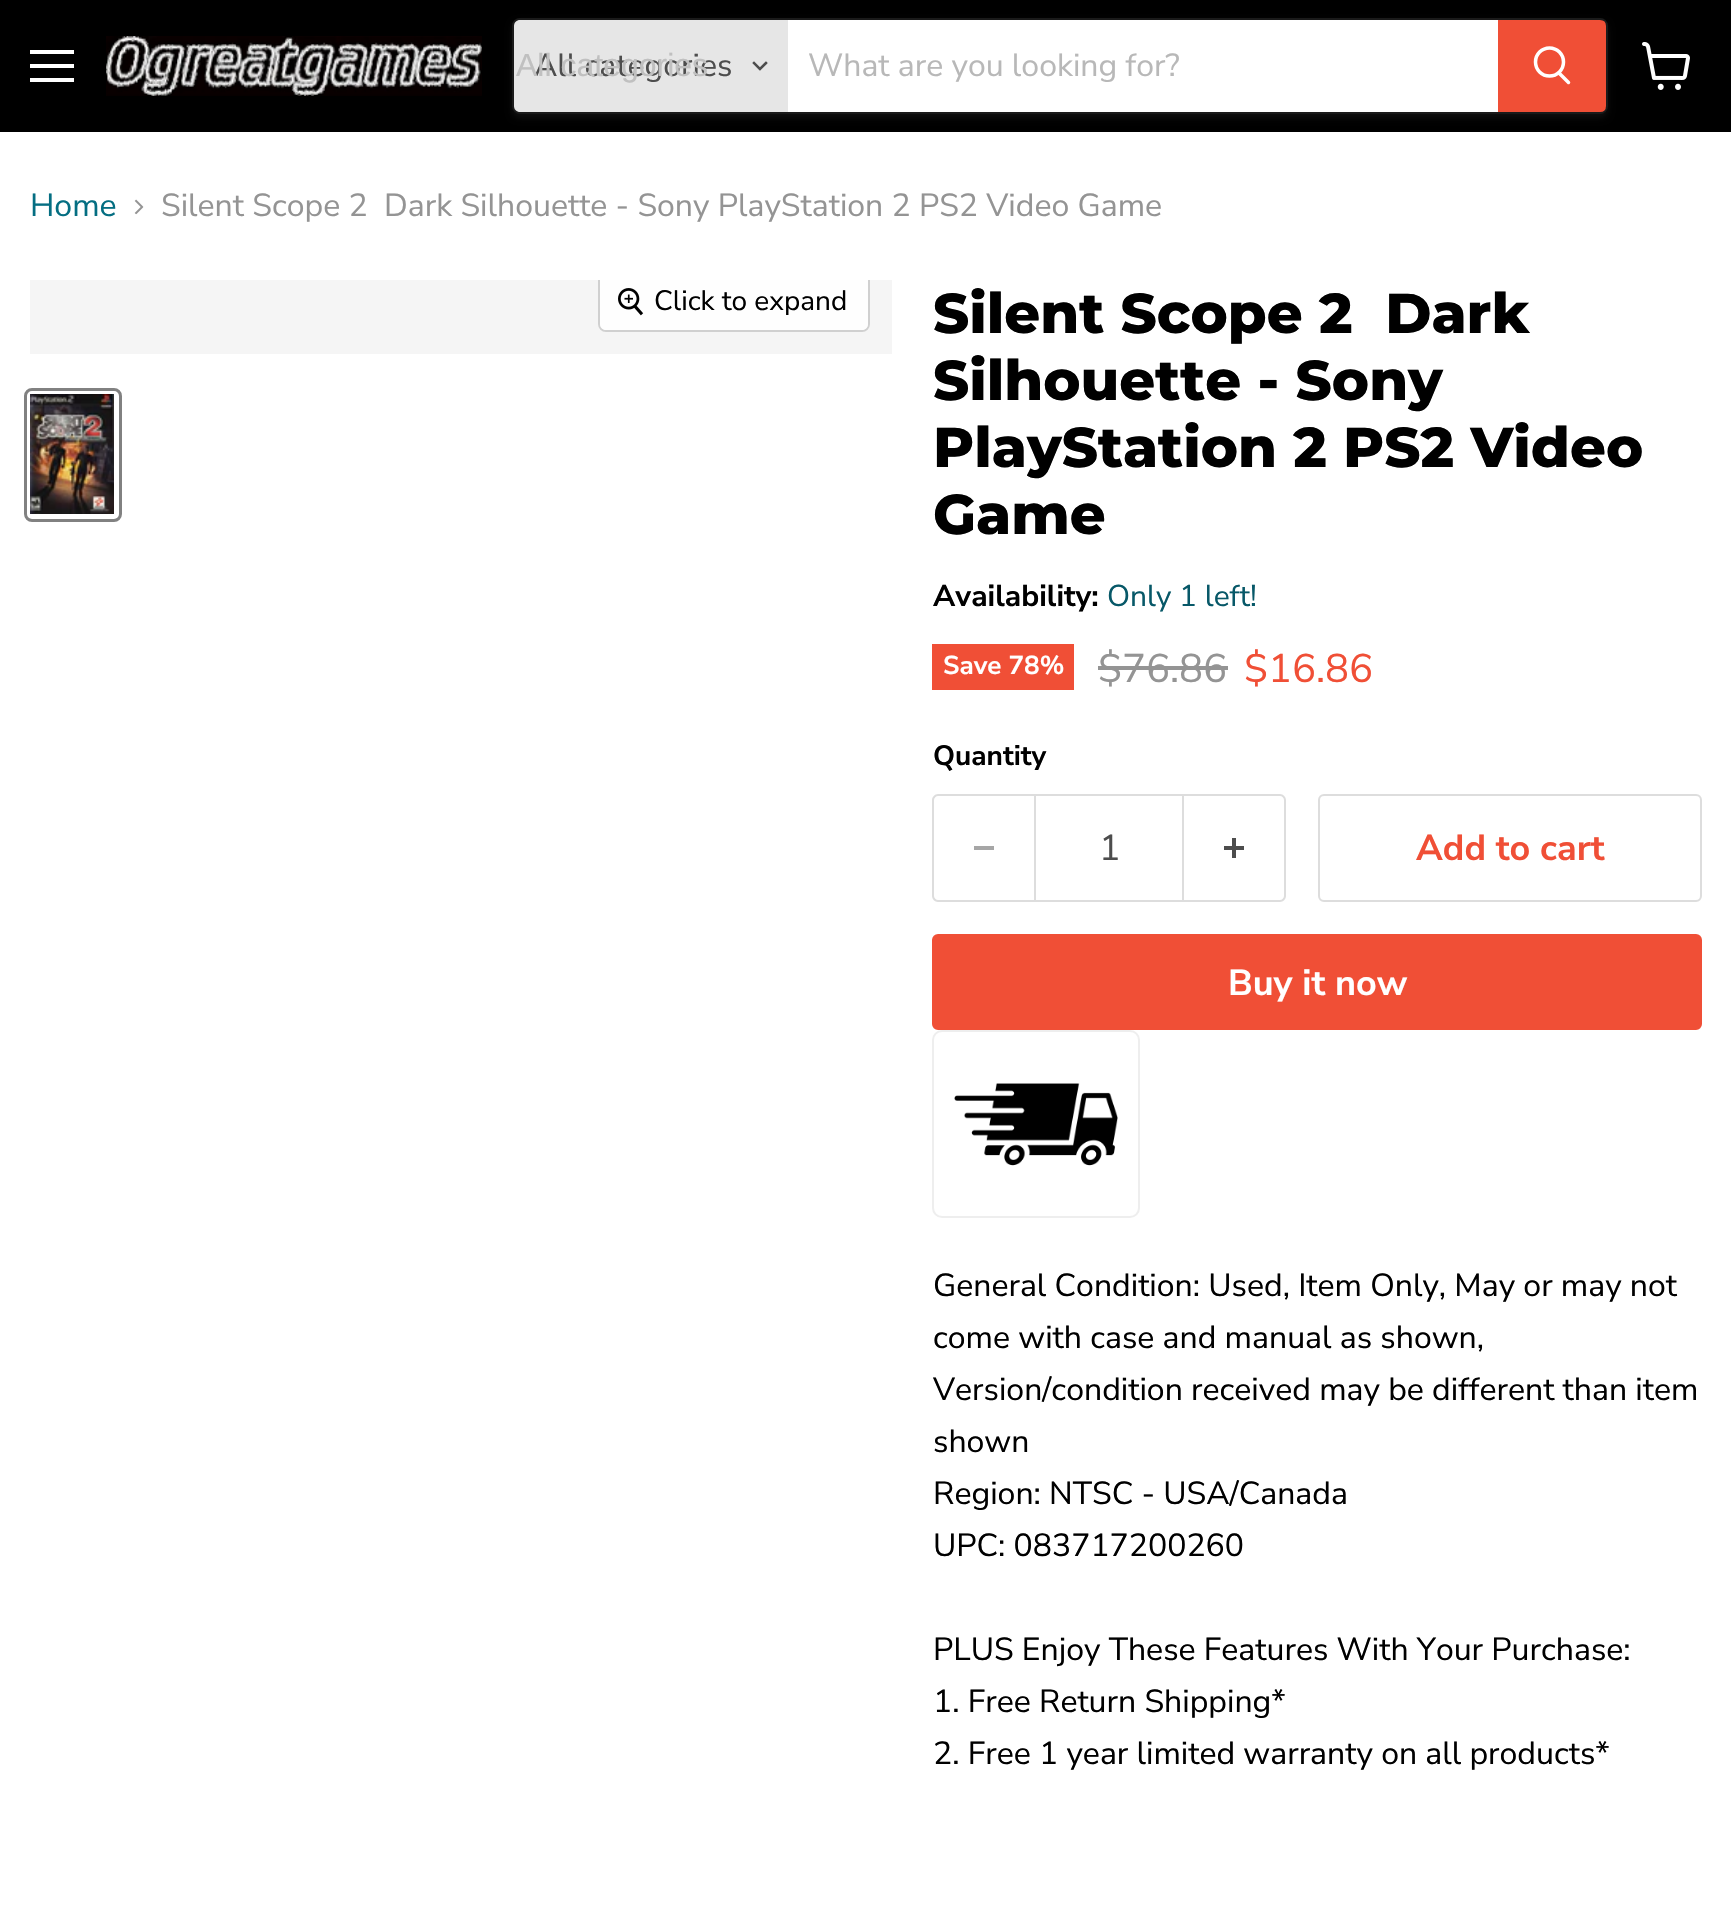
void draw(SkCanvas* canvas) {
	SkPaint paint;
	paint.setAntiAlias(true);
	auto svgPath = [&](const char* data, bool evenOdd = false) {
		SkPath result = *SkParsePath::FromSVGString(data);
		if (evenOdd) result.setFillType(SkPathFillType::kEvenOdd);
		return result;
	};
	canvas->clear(0xffffffff);
	paint.setColor(0xff000000);
	canvas->drawRect(SkRect::MakeXYWH(0, 0, 1731, 132), paint);
	paint.setColor(0xffffffff);
	canvas->drawRect(SkRect::MakeXYWH(30, 50, 44, 4), paint);
	canvas->drawRect(SkRect::MakeXYWH(30, 64, 44, 4), paint);
	canvas->drawRect(SkRect::MakeXYWH(30, 78, 44, 4), paint);
	canvas->drawImageRect(SkImages::DeferredFromEncodedData(SkData::MakeFromFileName("img1.png")), SkRect::MakeXYWH(106, 36, 376, 60), SkSamplingOptions());
	canvas->save();
	canvas->clipPath(svgPath("M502 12H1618V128H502ZM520 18H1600C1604.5 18 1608 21.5 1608 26V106C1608 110.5 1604.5 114 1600 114H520C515.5 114 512 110.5 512 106V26C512 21.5 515.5 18 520 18Z", true), true);
	paint.setColor(0x1c808080);
	paint.setMaskFilter(SkMaskFilter::MakeBlur(kNormal_SkBlurStyle, 3));
	canvas->drawRoundRect(SkRect::MakeXYWH(512, 22, 1096, 96), 8, 8, paint);
	paint.setMaskFilter(nullptr);
	canvas->restore();
	paint.setStroke(true);
	paint.setStrokeWidth(2);
	paint.setColor(0x33808080);
	canvas->drawRoundRect(SkRect::MakeXYWH(513, 19, 1094, 94), 7, 7, paint);
	paint.setStroke(false);
	paint.setColor(0xffe6e6e6);
	canvas->drawPath(svgPath("M520 20H788V112H520C516.5 112 514 109.5 514 106V26C514 22.5 516.5 20 520 20Z"), paint);
	SkFont f1(fontMgr->matchFamilyStyle("Nunito Sans", SkFontStyle::Normal()), 32);
	f1.setSubpixel(true);
	paint.setColor(0xff4d4d4d);
	canvas->drawString("All categories", 534, 76, f1, paint);
	SkFont f2(fontMgr->matchFamilyStyle("Liberation Sans", SkFontStyle::Normal()), 32);
	f2.setSubpixel(true);
	paint.setColor(0xffc0c0c0);
	canvas->drawString("All categories", 516, 76, f2, paint);
	paint.setStroke(true);
	paint.setStrokeWidth(2.5);
	paint.setStrokeCap(SkPaint::kSquare_Cap);
	paint.setColor(0xff4d4d4d);
	canvas->drawPath(svgPath("M760 69L766 63M760 69L754 63"), paint);
	paint.setStroke(false);
	paint.setColor(0xffffffff);
	canvas->drawRect(SkRect::MakeXYWH(788, 20, 710, 92), paint);
	paint.setColor(0xffb8b8b8);
	canvas->drawString("What are you looking for?", 808, 76, f1, paint);
	paint.setColor(0xfff04f36);
	canvas->drawPath(svgPath("M1499 21H1600C1603 21 1605 23 1605 26V106C1605 109 1603 111 1600 111H1499Z"), paint);
	paint.setStroke(true);
	paint.setStrokeWidth(2);
	paint.setStrokeCap(SkPaint::kButt_Cap);
	canvas->drawPath(svgPath("M1499 21H1600C1603 21 1605 23 1605 26V106C1605 109 1603 111 1600 111H1499Z"), paint);
	paint.setStrokeWidth(3.5);
	paint.setStrokeCap(SkPaint::kRound_Cap);
	paint.setColor(0xffffffff);
	canvas->drawPath(svgPath("M1568.5 82.5L1559 73"), paint);
	paint.setStrokeCap(SkPaint::kButt_Cap);
	canvas->drawCircle(1549.5, 62, 14, paint);
	canvas->drawImageRect(SkImages::DeferredFromEncodedData(SkData::MakeFromFileName("img2.png")), SkRect::MakeXYWH(1642, 42, 48, 48), SkSamplingOptions());
	paint.setStroke(false);
	paint.setColor(0xff046e82);
	canvas->drawString("Home", 30, 216, f1, paint);
	canvas->drawImageRect(SkImages::DeferredFromEncodedData(SkData::MakeFromFileName("img3.png")), SkRect::MakeXYWH(134, 199, 10, 16), SkSamplingOptions());
	paint.setColor(0xff949494);
	canvas->drawString("Silent Scope 2  Dark Silhouette - Sony PlayStation 2 PS2 Video Game", 161, 216, f1, paint);
	paint.setColor(0xfff5f5f5);
	canvas->drawRect(SkRect::MakeXYWH(30, 280, 862, 74), paint);
	canvas->save();
	canvas->clipRect(SkRect::MakeXYWH(30, 280, 862, 74));
	paint.setStroke(true);
	paint.setStrokeWidth(2);
	paint.setColor(0xffd0d0d0);
	canvas->drawRoundRect(SkRect::MakeXYWH(599, 273, 270, 58), 7, 7, paint);
	canvas->restore();
	paint.setStroke(false);
	paint.setColor(0xe6ffffff);
	canvas->drawPath(svgPath("M600 280H868V324C868 327.5 865.5 330 862 330H606C602.5 330 600 327.5 600 324Z"), paint);
	canvas->drawImageRect(SkImages::DeferredFromEncodedData(SkData::MakeFromFileName("img4.png")), SkRect::MakeXYWH(618, 288, 26, 28), SkSamplingOptions());
	SkFont f3(fontMgr->matchFamilyStyle("Nunito Sans", SkFontStyle::Normal()), 28);
	f3.setSubpixel(true);
	paint.setColor(0xff000000);
	canvas->drawString("Click to expand", 654, 310, f3, paint);
	paint.setStroke(true);
	paint.setStrokeWidth(3);
	paint.setColor(0xff818181);
	canvas->drawRoundRect(SkRect::MakeXYWH(25.5, 389.5, 95, 131), 6.5, 6.5, paint);
	canvas->drawImageRect(SkImages::DeferredFromEncodedData(SkData::MakeFromFileName("img5.png")), SkRect::MakeXYWH(30, 394, 84, 120), SkSamplingOptions());
	SkFont f4(fontMgr->matchFamilyStyle("Montserrat", SkFontStyle(800, SkFontStyle::kNormal_Width, SkFontStyle::kUpright_Slant)), 56);
	f4.setSubpixel(true);
	paint.setStroke(false);
	paint.setColor(0xff000000);
	canvas->drawString("Silent Scope 2  Dark", 933, 333, f4, paint);
	canvas->drawString("Silhouette - Sony", 933, 400, f4, paint);
	canvas->drawString("PlayStation 2 PS2 Video", 933, 467, f4, paint);
	canvas->drawString("Game", 933, 534, f4, paint);
	SkFont f5(fontMgr->matchFamilyStyle("Nunito Sans", SkFontStyle::Bold()), 30);
	f5.setSubpixel(true);
	canvas->drawString("Availability:", 933, 606, f5, paint);
	SkFont f6(fontMgr->matchFamilyStyle("Nunito Sans", SkFontStyle::Normal()), 30);
	f6.setSubpixel(true);
	paint.setColor(0xff075868);
	canvas->drawString("Only 1 left!", 1107, 606, f6, paint);
	paint.setColor(0xfff04f36);
	canvas->drawRect(SkRect::MakeXYWH(932, 644, 142, 46), paint);
	SkFont f7(fontMgr->matchFamilyStyle("Nunito Sans", SkFontStyle::Bold()), 26);
	f7.setSubpixel(true);
	paint.setColor(0xffffffff);
	canvas->drawString("Save 78%", 943, 674, f7, paint);
	SkFont f8(fontMgr->matchFamilyStyle("Nunito Sans", SkFontStyle::Normal()), 40);
	f8.setSubpixel(true);
	paint.setColor(0xff949494);
	canvas->drawString("$76.86", 1098, 682, f8, paint);
	canvas->drawRect(SkRect::MakeXYWH(1098, 666, 130, 4), paint);
	paint.setColor(0xfff04f36);
	canvas->drawString("$16.86", 1244, 682, f8, paint);
	SkFont f9(fontMgr->matchFamilyStyle("Nunito Sans", SkFontStyle::Bold()), 28);
	f9.setSubpixel(true);
	paint.setColor(0xff000000);
	canvas->drawString("Quantity", 933, 765, f9, paint);
	paint.setColor(0xffdddddd);
	canvas->drawPath(svgPath("M938 794H1034V902H938C935 902 932 899 932 896V800C932 797 935 794 938 794ZM938 796H1034V900H938C936 900 934 898 934 896V800C934 798 936 796 938 796Z", true), paint);
	paint.setColor(0xffa6a6a6);
	canvas->drawRect(SkRect::MakeXYWH(974, 846, 20, 4), paint);
	paint.setStroke(true);
	paint.setStrokeWidth(2);
	paint.setColor(0xffdddddd);
	canvas->drawRect(SkRect::MakeXYWH(1035, 795, 148, 106), paint);
	SkFont f10(fontMgr->matchFamilyStyle("Nunito Sans", SkFontStyle::Normal()), 36);
	f10.setSubpixel(true);
	paint.setStroke(false);
	paint.setColor(0xff4d4d4d);
	canvas->drawString("1", 1099, 860, f10, paint);
	paint.setColor(0xffdddddd);
	canvas->drawPath(svgPath("M1184 794H1280C1283 794 1286 797 1286 800V896C1286 899 1283 902 1280 902H1184ZM1184 796H1280C1282 796 1284 798 1284 800V896C1284 898 1282 900 1280 900H1184Z", true), paint);
	canvas->drawImageRect(SkImages::DeferredFromEncodedData(SkData::MakeFromFileName("img6.png")), SkRect::MakeXYWH(1224, 838, 20, 20), SkSamplingOptions());
	paint.setStroke(true);
	canvas->drawRoundRect(SkRect::MakeXYWH(1319, 795, 382, 106), 5, 5, paint);
	SkFont f11(fontMgr->matchFamilyStyle("Nunito Sans", SkFontStyle::Bold()), 36);
	f11.setSubpixel(true);
	paint.setStroke(false);
	paint.setColor(0xfff04f36);
	canvas->drawString("Add to cart", 1416, 860, f11, paint);
	canvas->drawRoundRect(SkRect::MakeXYWH(933, 935, 768, 94), 5, 5, paint);
	paint.setStroke(true);
	canvas->drawRoundRect(SkRect::MakeXYWH(933, 935, 768, 94), 5, 5, paint);
	paint.setStroke(false);
	paint.setColor(0xffffffff);
	canvas->drawString("Buy it now", 1228, 995, f11, paint);
	paint.setStroke(true);
	paint.setColor(0xffeeeeee);
	canvas->drawRoundRect(SkRect::MakeXYWH(933, 1031, 206, 186), 9, 9, paint);
	canvas->drawImageRect(SkImages::DeferredFromEncodedData(SkData::MakeFromFileName("img7.png")), SkRect::MakeXYWH(954, 1083, 164, 83), SkSamplingOptions());
	paint.setStroke(false);
	paint.setColor(0xff000000);
	canvas->drawString("General Condition: Used, Item Only, May or may not", 933, 1296, f1, paint);
	canvas->drawString("come with case and manual as shown,", 933, 1348, f1, paint);
	canvas->drawString("Version/condition received may be different than item", 933, 1400, f1, paint);
	canvas->drawString("shown", 933, 1452, f1, paint);
	canvas->drawString("Region: NTSC - USA/Canada", 933, 1504, f1, paint);
	canvas->drawString("UPC: 083717200260", 933, 1556, f1, paint);
	canvas->drawString("PLUS Enjoy These Features With Your Purchase:", 933, 1660, f1, paint);
	canvas->drawString("1. Free Return Shipping*", 933, 1712, f1, paint);
	canvas->drawString("2. Free 1 year limited warranty on all products*", 933, 1764, f1, paint);
}
